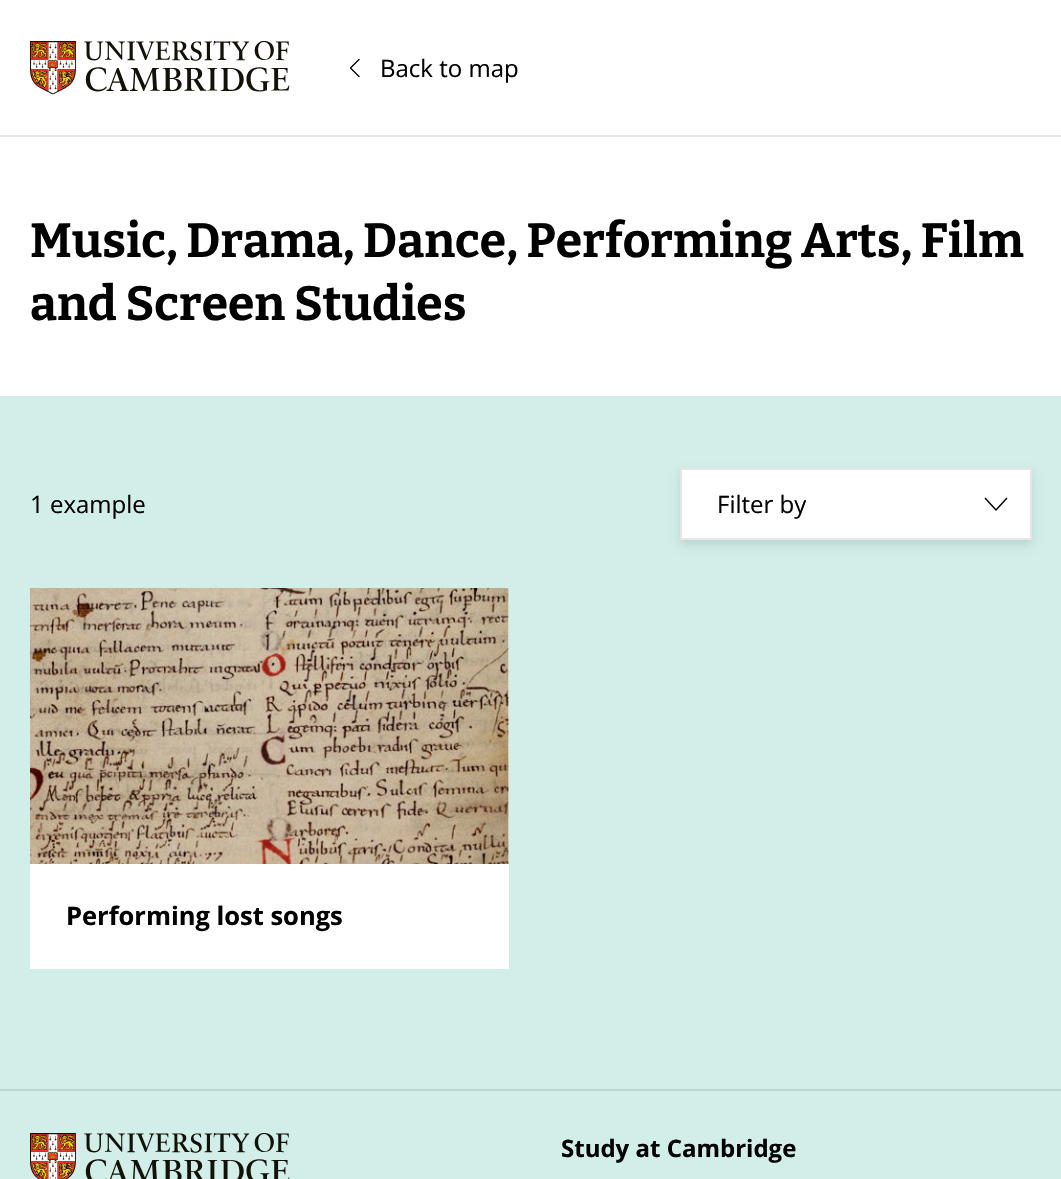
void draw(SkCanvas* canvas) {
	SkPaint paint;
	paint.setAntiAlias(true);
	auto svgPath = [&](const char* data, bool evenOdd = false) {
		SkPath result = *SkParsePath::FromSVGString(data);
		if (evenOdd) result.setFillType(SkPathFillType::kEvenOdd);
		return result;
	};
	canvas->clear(0xffffffff);
	paint.setColor(0xffe6e6e6);
	canvas->drawRect(SkRect::MakeXYWH(0, 135, 1061, 2), paint);
	canvas->drawImageRect(SkImages::DeferredFromEncodedData(SkData::MakeFromFileName("img1.png")), SkRect::MakeXYWH(30, 41, 260, 54), SkSamplingOptions());
	canvas->save();
	canvas->clipRect(SkRect::MakeXYWH(350, 59, 10, 18));
	paint.setStroke(true);
	paint.setStrokeWidth(1.3);
	paint.setColor(0xff000000);
	canvas->drawPath(svgPath("M359.5 77L350.5 68L359.5 59"), paint);
	canvas->restore();
	SkFont f1(fontMgr->matchFamilyStyle("Open Sans", SkFontStyle::Normal()), 24);
	f1.setSubpixel(true);
	paint.setStroke(false);
	canvas->drawString("Back to map", 380, 77, f1, paint);
	SkFont f2(fontMgr->matchFamilyStyle("Bitter", SkFontStyle(100, SkFontStyle::kNormal_Width, SkFontStyle::kUpright_Slant)), 48);
	f2.setSubpixel(true);
	canvas->drawString("Music, Drama, Dance, Performing Arts, Film", 30, 257, f2, paint);
	canvas->drawString("and Screen Studies", 30, 320, f2, paint);
	paint.setColor(0xffd1eee9);
	canvas->drawRect(SkRect::MakeXYWH(0, 396, 1061, 693), paint);
	paint.setColor(0xff000000);
	canvas->drawString("1 example", 30, 513, f1, paint);
	paint.setColor(0x1a000000);
	paint.setMaskFilter(SkMaskFilter::MakeBlur(kNormal_SkBlurStyle, 4.5));
	canvas->drawRect(SkRect::MakeXYWH(680, 473, 352, 72), paint);
	paint.setMaskFilter(nullptr);
	paint.setColor(0xfffefffe);
	canvas->drawRect(SkRect::MakeXYWH(681, 469, 350, 70), paint);
	paint.setStroke(true);
	paint.setStrokeWidth(2);
	paint.setColor(0xffe5e6e5);
	canvas->drawRect(SkRect::MakeXYWH(681, 469, 350, 70), paint);
	paint.setStroke(false);
	paint.setColor(0xff000000);
	canvas->drawString("Filter by", 717, 513, f1, paint);
	paint.setStroke(true);
	paint.setStrokeWidth(1.5);
	canvas->drawPath(svgPath("M985 498L996 510L1007 498"), paint);
	paint.setStroke(false);
	paint.setColor(0xfffefffe);
	canvas->drawRect(SkRect::MakeXYWH(30, 588, 479, 381), paint);
	canvas->drawImageRect(SkImages::DeferredFromEncodedData(SkData::MakeFromFileName("img2.png")), SkRect::MakeXYWH(30, 588, 479, 276), SkSamplingOptions());
	SkFont f3(fontMgr->matchFamilyStyle("Open Sans", SkFontStyle::Bold()), 25.5);
	f3.setSubpixel(true);
	paint.setColor(0xff000000);
	canvas->drawString("Performing lost songs", 66, 925, f3, paint);
	paint.setColor(0xffd1eee9);
	canvas->drawRect(SkRect::MakeXYWH(0, 1091, 1061, 88), paint);
	paint.setColor(0xffbcd6d2);
	canvas->drawRect(SkRect::MakeXYWH(0, 1089, 1061, 2), paint);
	canvas->drawImageRect(SkImages::DeferredFromEncodedData(SkData::MakeFromFileName("img3.png")), SkRect::MakeXYWH(30, 1133, 260, 46), SkSamplingOptions());
	SkFont f4(fontMgr->matchFamilyStyle("Open Sans", SkFontStyle::Bold()), 24);
	f4.setSubpixel(true);
	paint.setColor(0xff000000);
	canvas->drawString("Study at Cambridge", 561, 1157, f4, paint);
}
